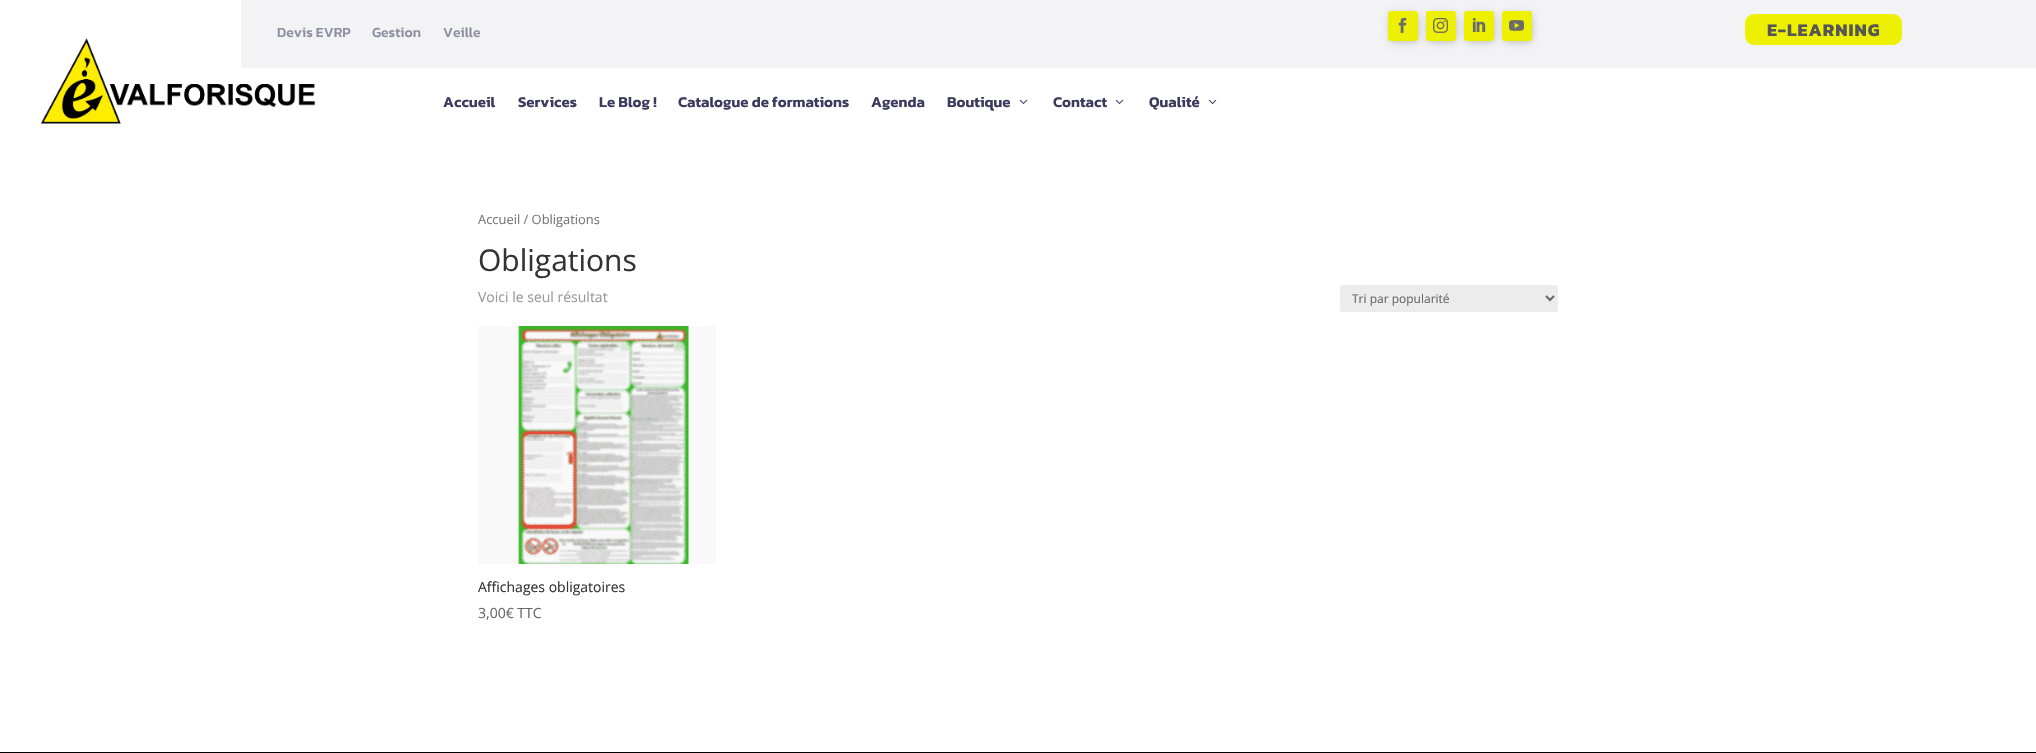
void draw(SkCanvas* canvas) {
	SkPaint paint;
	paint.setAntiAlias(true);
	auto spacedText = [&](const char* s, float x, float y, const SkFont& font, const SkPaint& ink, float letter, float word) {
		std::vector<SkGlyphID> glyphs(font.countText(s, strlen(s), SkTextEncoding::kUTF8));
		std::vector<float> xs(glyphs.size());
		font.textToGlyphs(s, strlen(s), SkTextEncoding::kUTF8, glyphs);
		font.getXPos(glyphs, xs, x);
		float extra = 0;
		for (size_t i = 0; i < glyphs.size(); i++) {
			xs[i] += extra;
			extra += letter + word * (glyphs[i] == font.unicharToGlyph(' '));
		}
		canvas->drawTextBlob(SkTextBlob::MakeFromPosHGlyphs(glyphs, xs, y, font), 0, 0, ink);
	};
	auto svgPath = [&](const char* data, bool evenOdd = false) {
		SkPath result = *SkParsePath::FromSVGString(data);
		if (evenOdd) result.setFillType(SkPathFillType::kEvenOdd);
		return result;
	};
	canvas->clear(0xffffffff);
	paint.setColor(0xfff3f3f5);
	canvas->drawRect(SkRect::MakeXYWH(241, 0, 1795, 68), paint);
	SkFont f1(fontMgr->matchFamilyStyle("Kanit", SkFontStyle(500, SkFontStyle::kNormal_Width, SkFontStyle::kUpright_Slant)), 14);
	f1.setSubpixel(true);
	paint.setColor(0xff8e8ea2);
	canvas->drawString("Devis EVRP", 277, 37, f1, paint);
	canvas->drawString("Gestion", 372, 37, f1, paint);
	canvas->drawString("Veille", 443, 37, f1, paint);
	paint.setColor(0x4d000000);
	paint.setMaskFilter(SkMaskFilter::MakeBlur(kNormal_SkBlurStyle, 4.5));
	canvas->drawRoundRect(SkRect::MakeXYWH(1391, 15, 26, 26), 1, 1, paint);
	paint.setMaskFilter(nullptr);
	paint.setColor(0xffedf000);
	canvas->drawRoundRect(SkRect::MakeXYWH(1388, 11, 30, 30), 3, 3, paint);
	canvas->drawImageRect(SkImages::DeferredFromEncodedData(SkData::MakeFromFileName("img1.png")), SkRect::MakeXYWH(1398, 17, 9, 16), SkSamplingOptions());
	paint.setColor(0x4d000000);
	paint.setMaskFilter(SkMaskFilter::MakeBlur(kNormal_SkBlurStyle, 4.5));
	canvas->drawRoundRect(SkRect::MakeXYWH(1429, 15, 26, 26), 1, 1, paint);
	paint.setMaskFilter(nullptr);
	paint.setColor(0xffedf000);
	canvas->drawRoundRect(SkRect::MakeXYWH(1426, 11, 30, 30), 3, 3, paint);
	canvas->drawImageRect(SkImages::DeferredFromEncodedData(SkData::MakeFromFileName("img2.png")), SkRect::MakeXYWH(1433, 17, 15, 16), SkSamplingOptions());
	paint.setColor(0x4d000000);
	paint.setMaskFilter(SkMaskFilter::MakeBlur(kNormal_SkBlurStyle, 4.5));
	canvas->drawRoundRect(SkRect::MakeXYWH(1467, 15, 26, 26), 1, 1, paint);
	paint.setMaskFilter(nullptr);
	paint.setColor(0xffedf000);
	canvas->drawRoundRect(SkRect::MakeXYWH(1464, 11, 30, 30), 3, 3, paint);
	canvas->drawImageRect(SkImages::DeferredFromEncodedData(SkData::MakeFromFileName("img3.png")), SkRect::MakeXYWH(1472, 18, 14, 14), SkSamplingOptions());
	paint.setColor(0x4d000000);
	paint.setMaskFilter(SkMaskFilter::MakeBlur(kNormal_SkBlurStyle, 4.5));
	canvas->drawRoundRect(SkRect::MakeXYWH(1505, 15, 26, 26), 1, 1, paint);
	paint.setMaskFilter(nullptr);
	paint.setColor(0xffedf000);
	canvas->drawRoundRect(SkRect::MakeXYWH(1502, 11, 30, 30), 3, 3, paint);
	canvas->drawImageRect(SkImages::DeferredFromEncodedData(SkData::MakeFromFileName("img4.png")), SkRect::MakeXYWH(1509, 20, 15, 11), SkSamplingOptions());
	canvas->drawRoundRect(SkRect::MakeXYWH(1745, 14, 157, 31), 9, 9, paint);
	SkFont f2(fontMgr->matchFamilyStyle("Kanit", SkFontStyle::Bold()), 18);
	f2.setSubpixel(true);
	paint.setColor(0xff565656);
	spacedText("E-LEARNING", 1767, 36, f2, paint, 1, 0);
	canvas->drawImageRect(SkImages::DeferredFromEncodedData(SkData::MakeFromFileName("img5.png")), SkRect::MakeXYWH(41, 38, 275, 86), SkSamplingOptions());
	SkFont f3(fontMgr->matchFamilyStyle("Kanit", SkFontStyle(600, SkFontStyle::kNormal_Width, SkFontStyle::kUpright_Slant)), 15);
	f3.setSubpixel(true);
	paint.setColor(0xff3a3b5e);
	canvas->drawString("Accueil", 443, 107, f3, paint);
	canvas->drawString("Services", 518, 107, f3, paint);
	canvas->drawString("Le Blog !", 599, 107, f3, paint);
	canvas->drawString("Catalogue de formations", 678, 107, f3, paint);
	canvas->drawString("Agenda", 871, 107, f3, paint);
	canvas->drawString("Boutique", 947, 107, f3, paint);
	canvas->drawImageRect(SkImages::DeferredFromEncodedData(SkData::MakeFromFileName("img6.png")), SkRect::MakeXYWH(1019, 99, 9, 5), SkSamplingOptions());
	canvas->drawString("Contact", 1053, 107, f3, paint);
	canvas->drawImageRect(SkImages::DeferredFromEncodedData(SkData::MakeFromFileName("img6.png")), SkRect::MakeXYWH(1115, 99, 9, 5), SkSamplingOptions());
	canvas->drawString("Qualité", 1149, 107, f3, paint);
	canvas->drawImageRect(SkImages::DeferredFromEncodedData(SkData::MakeFromFileName("img6.png")), SkRect::MakeXYWH(1208, 99, 9, 5), SkSamplingOptions());
	SkFont f4(fontMgr->matchFamilyStyle("Open Sans", SkFontStyle::Normal()), 12.9);
	f4.setSubpixel(true);
	paint.setColor(0xff767676);
	canvas->drawString("Accueil / Obligations", 478, 224, f4, paint);
	SkFont f5(fontMgr->matchFamilyStyle("Open Sans", SkFontStyle::Normal()), 30);
	f5.setSubpixel(true);
	paint.setColor(0xff333333);
	canvas->drawString("Obligations", 478, 271, f5, paint);
	SkFont f6(fontMgr->matchFamilyStyle("Open Sans", SkFontStyle::Normal()), 14);
	f6.setSubpixel(true);
	paint.setColor(0xff999999);
	canvas->drawString("Voici le seul résultat", 478, 302, f6, paint);
	paint.setColor(0xffececec);
	canvas->drawRoundRect(SkRect::MakeXYWH(1340, 285, 218, 27), 3, 3, paint);
	paint.setStroke(true);
	paint.setStrokeWidth(2);
	paint.setColor(0xff666666);
	canvas->drawPath(svgPath("M1546 296L1550 300L1554 296"), paint);
	SkFont f7(fontMgr->matchFamilyStyle("Open Sans", SkFontStyle::Normal()), 12);
	f7.setSubpixel(true);
	paint.setStroke(false);
	canvas->drawString("Tri par popularité", 1352, 303, f7, paint);
	canvas->drawImageRect(SkImages::DeferredFromEncodedData(SkData::MakeFromFileName("img7.png")), SkRect::MakeXYWH(478, 326, 238, 238), SkSamplingOptions());
	paint.setColor(0xff333333);
	canvas->drawString("Affichages obligatoires", 478, 592, f6, paint);
	paint.setColor(0xff666666);
	canvas->drawString("3,00€ TTC", 478, 618, f6, paint);
	paint.setColor(0xff000000);
	canvas->drawRect(SkRect::MakeXYWH(0, 752, 2036, 1), paint);
}
